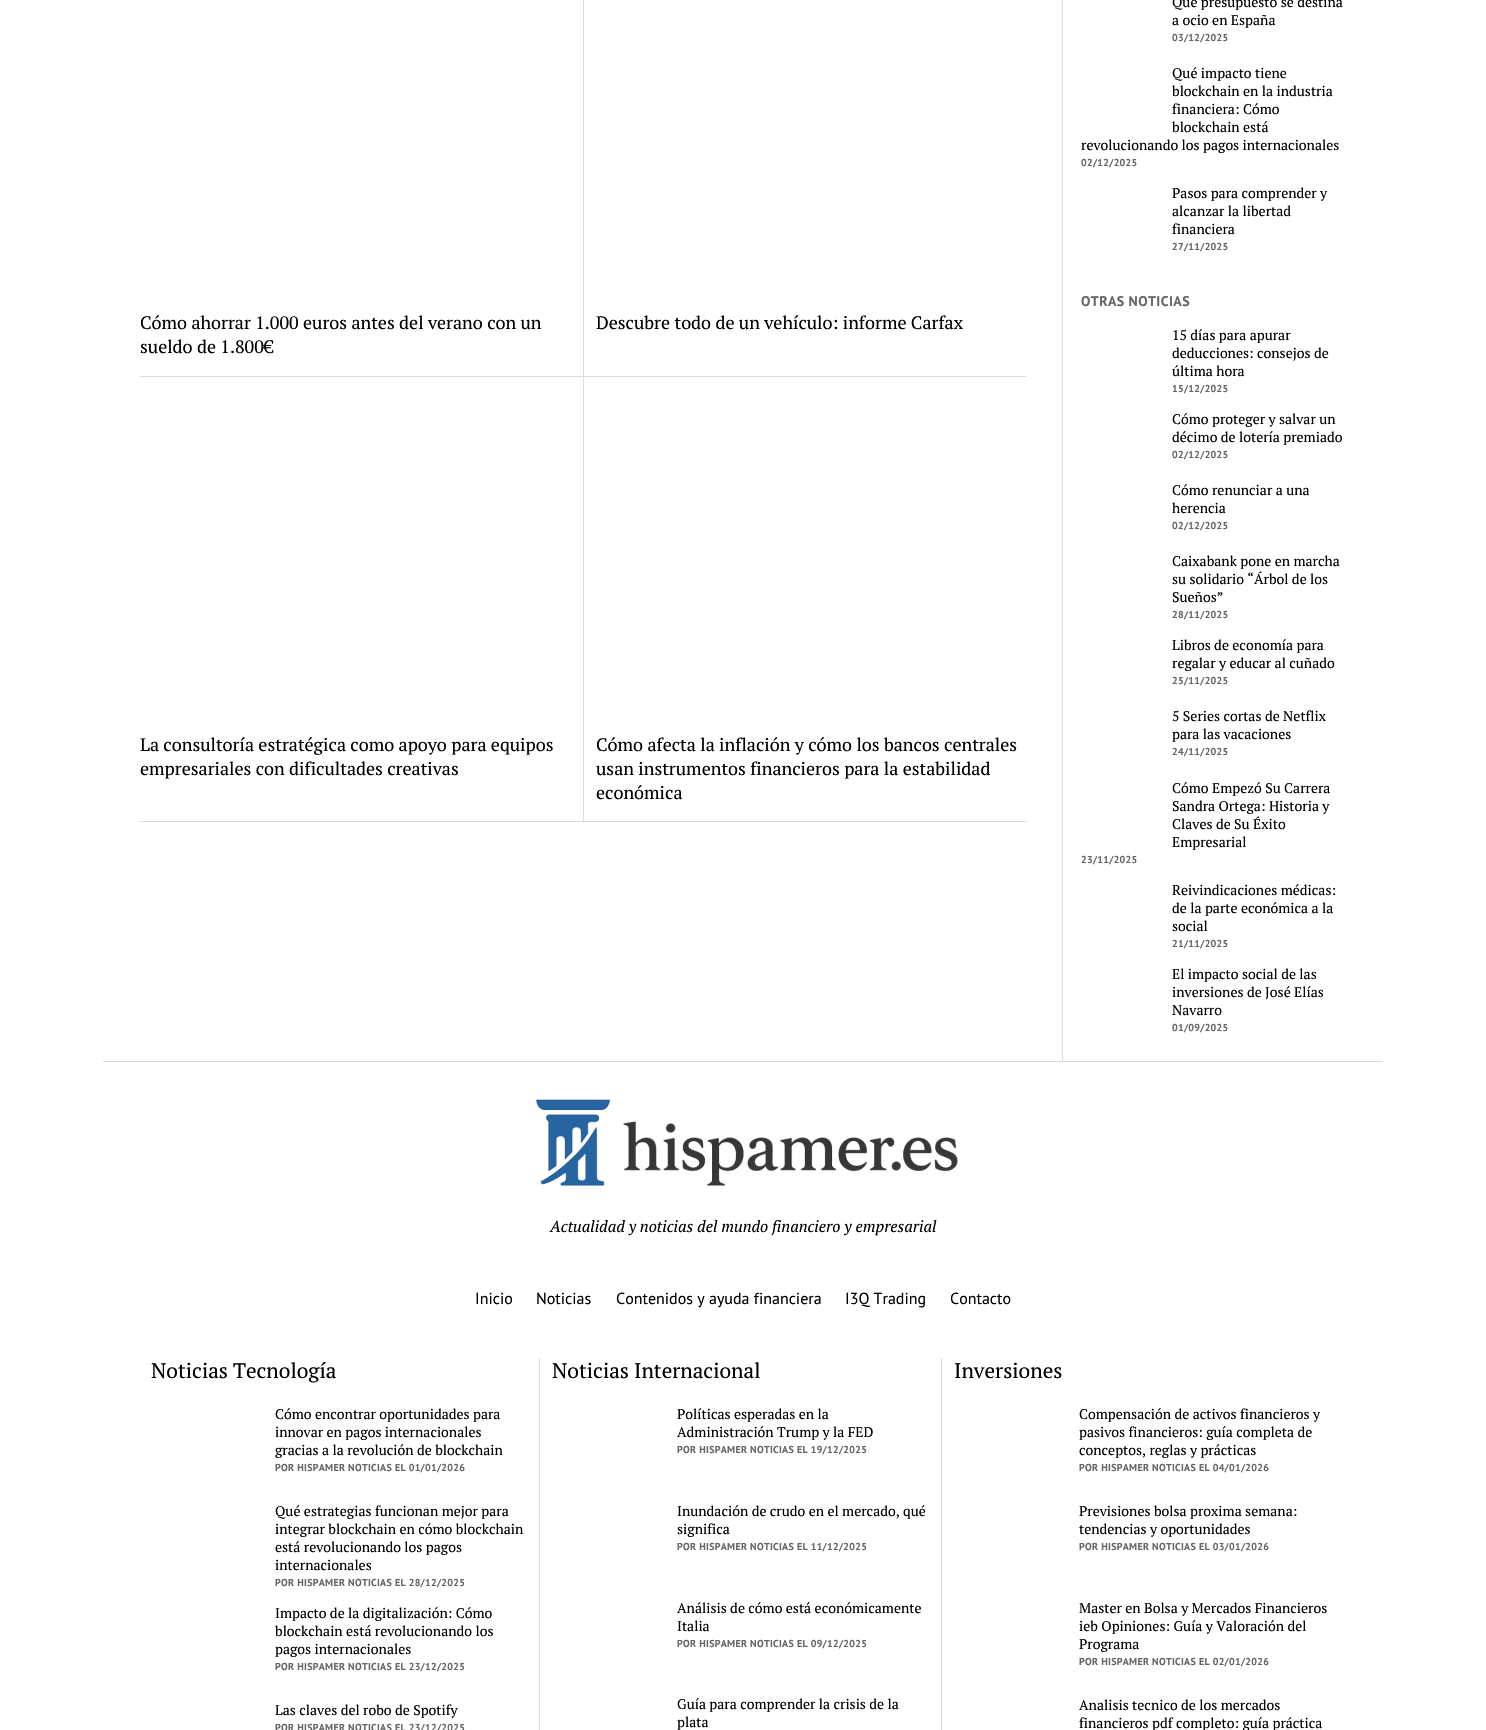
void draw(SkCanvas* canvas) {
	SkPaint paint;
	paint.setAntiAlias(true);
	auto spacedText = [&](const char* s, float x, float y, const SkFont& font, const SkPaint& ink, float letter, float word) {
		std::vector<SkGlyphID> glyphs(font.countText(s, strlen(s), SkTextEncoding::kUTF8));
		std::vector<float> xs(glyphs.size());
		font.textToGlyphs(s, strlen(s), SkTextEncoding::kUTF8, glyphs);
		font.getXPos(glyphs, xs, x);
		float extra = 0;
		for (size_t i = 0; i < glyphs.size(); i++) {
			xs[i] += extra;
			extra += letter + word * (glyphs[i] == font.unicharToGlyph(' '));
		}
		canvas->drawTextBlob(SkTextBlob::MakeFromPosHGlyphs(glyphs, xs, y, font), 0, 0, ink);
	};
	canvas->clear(0xffffffff);
	paint.setColor(0xffdcdcdc);
	canvas->drawRect(SkRect::MakeXYWH(140, 821, 887, 1), paint);
	canvas->drawRect(SkRect::MakeXYWH(583, 0, 1, 376), paint);
	SkFont f1(fontMgr->matchFamilyStyle("PT Serif", SkFontStyle::Normal()), 18);
	f1.setSubpixel(true);
	paint.setColor(0xff000000);
	canvas->drawString("Cómo ahorrar 1.000 euros antes del verano con un", 140, 329, f1, paint);
	canvas->drawString("sueldo de 1.800€", 140, 353, f1, paint);
	canvas->drawString("Descubre todo de un vehículo: informe Carfax", 596, 329, f1, paint);
	paint.setColor(0xffdcdcdc);
	canvas->drawRect(SkRect::MakeXYWH(140, 376, 886, 1), paint);
	paint.setColor(0xff000000);
	canvas->drawString("La consultoría estratégica como apoyo para equipos", 140, 751, f1, paint);
	canvas->drawString("empresariales con dificultades creativas", 140, 775, f1, paint);
	paint.setColor(0xffdcdcdc);
	canvas->drawRect(SkRect::MakeXYWH(583, 376, 1, 445), paint);
	paint.setColor(0xff000000);
	canvas->drawString("Cómo afecta la inflación y cómo los bancos centrales", 596, 751, f1, paint);
	canvas->drawString("usan instrumentos financieros para la estabilidad", 596, 775, f1, paint);
	canvas->drawString("económica", 596, 799, f1, paint);
	SkFont f2(fontMgr->matchFamilyStyle("PT Serif", SkFontStyle::Normal()), 14);
	f2.setSubpixel(true);
	canvas->drawString("Qué presupuesto se destina", 1172, 7, f2, paint);
	canvas->drawString("a ocio en España", 1172, 25, f2, paint);
	SkFont f3(fontMgr->matchFamilyStyle("PT Sans", SkFontStyle::Bold()), 10);
	f3.setSubpixel(true);
	paint.setColor(0xff666666);
	spacedText("03/12/2025", 1172, 41, f3, paint, 0.3, 0);
	paint.setColor(0xff000000);
	canvas->drawString("Qué impacto tiene", 1172, 78, f2, paint);
	canvas->drawString("blockchain en la industria", 1172, 96, f2, paint);
	canvas->drawString("financiera: Cómo", 1172, 114, f2, paint);
	canvas->drawString("blockchain está", 1172, 132, f2, paint);
	canvas->drawString("revolucionando los pagos internacionales", 1081, 150, f2, paint);
	paint.setColor(0xff666666);
	spacedText("02/12/2025", 1081, 166, f3, paint, 0.3, 0);
	paint.setColor(0xff000000);
	canvas->drawString("Pasos para comprender y", 1172, 198, f2, paint);
	canvas->drawString("alcanzar la libertad", 1172, 216, f2, paint);
	canvas->drawString("financiera", 1172, 234, f2, paint);
	paint.setColor(0xff666666);
	spacedText("27/11/2025", 1172, 250, f3, paint, 0.3, 0);
	SkFont f4(fontMgr->matchFamilyStyle("PT Sans", SkFontStyle::Bold()), 14);
	f4.setSubpixel(true);
	spacedText("OTRAS NOTICIAS", 1081, 306, f4, paint, 0.4, 0);
	paint.setColor(0xff000000);
	canvas->drawString("15 días para apurar", 1172, 340, f2, paint);
	canvas->drawString("deducciones: consejos de", 1172, 358, f2, paint);
	canvas->drawString("última hora", 1172, 376, f2, paint);
	paint.setColor(0xff666666);
	spacedText("15/12/2025", 1172, 392, f3, paint, 0.3, 0);
	paint.setColor(0xff000000);
	canvas->drawString("Cómo proteger y salvar un", 1172, 424, f2, paint);
	canvas->drawString("décimo de lotería premiado", 1172, 442, f2, paint);
	paint.setColor(0xff666666);
	spacedText("02/12/2025", 1172, 458, f3, paint, 0.3, 0);
	paint.setColor(0xff000000);
	canvas->drawString("Cómo renunciar a una", 1172, 495, f2, paint);
	canvas->drawString("herencia", 1172, 513, f2, paint);
	paint.setColor(0xff666666);
	spacedText("02/12/2025", 1172, 529, f3, paint, 0.3, 0);
	paint.setColor(0xff000000);
	canvas->drawString("Caixabank pone en marcha", 1172, 566, f2, paint);
	canvas->drawString("su solidario “Árbol de los", 1172, 584, f2, paint);
	canvas->drawString("Sueños”", 1172, 602, f2, paint);
	paint.setColor(0xff666666);
	spacedText("28/11/2025", 1172, 618, f3, paint, 0.3, 0);
	paint.setColor(0xff000000);
	canvas->drawString("Libros de economía para", 1172, 650, f2, paint);
	canvas->drawString("regalar y educar al cuñado", 1172, 668, f2, paint);
	paint.setColor(0xff666666);
	spacedText("25/11/2025", 1172, 684, f3, paint, 0.3, 0);
	paint.setColor(0xff000000);
	canvas->drawString("5 Series cortas de Netflix", 1172, 721, f2, paint);
	canvas->drawString("para las vacaciones", 1172, 739, f2, paint);
	paint.setColor(0xff666666);
	spacedText("24/11/2025", 1172, 755, f3, paint, 0.3, 0);
	paint.setColor(0xff000000);
	canvas->drawString("Cómo Empezó Su Carrera", 1172, 793, f2, paint);
	canvas->drawString("Sandra Ortega: Historia y", 1172, 811, f2, paint);
	canvas->drawString("Claves de Su Éxito", 1172, 829, f2, paint);
	canvas->drawString("Empresarial", 1172, 847, f2, paint);
	paint.setColor(0xff666666);
	spacedText("23/11/2025", 1081, 863, f3, paint, 0.3, 0);
	paint.setColor(0xff000000);
	canvas->drawString("Reivindicaciones médicas:", 1172, 895, f2, paint);
	canvas->drawString("de la parte económica a la", 1172, 913, f2, paint);
	canvas->drawString("social", 1172, 931, f2, paint);
	paint.setColor(0xff666666);
	spacedText("21/11/2025", 1172, 947, f3, paint, 0.3, 0);
	paint.setColor(0xff000000);
	canvas->drawString("El impacto social de las", 1172, 979, f2, paint);
	canvas->drawString("inversiones de José Elías", 1172, 997, f2, paint);
	canvas->drawString("Navarro", 1172, 1015, f2, paint);
	paint.setColor(0xff666666);
	spacedText("01/09/2025", 1172, 1031, f3, paint, 0.3, 0);
	paint.setColor(0xffdcdcdc);
	canvas->drawRect(SkRect::MakeXYWH(1062, 0, 1, 1061), paint);
	canvas->drawRect(SkRect::MakeXYWH(103, 1061, 1280, 1), paint);
	canvas->drawImageRect(SkImages::DeferredFromEncodedData(SkData::MakeFromFileName("img1.png")), SkRect::MakeXYWH(536, 1099, 422, 87), SkSamplingOptions());
	SkFont f5(fontMgr->matchFamilyStyle("PT Serif", SkFontStyle::Italic()), 16);
	f5.setSubpixel(true);
	paint.setColor(0xff000000);
	canvas->drawString("Actualidad y noticias del mundo financiero y empresarial", 550, 1232, f5, paint);
	SkFont f6(fontMgr->matchFamilyStyle("PT Sans", SkFontStyle::Normal()), 16);
	f6.setSubpixel(true);
	canvas->drawString("Inicio", 475, 1304, f6, paint);
	canvas->drawString("Noticias", 536, 1304, f6, paint);
	canvas->drawString("Contenidos y ayuda financiera", 616, 1304, f6, paint);
	canvas->drawString("I3Q Trading", 845, 1304, f6, paint);
	canvas->drawString("Contacto", 950, 1304, f6, paint);
	paint.setColor(0xffdcdcdc);
	canvas->drawRect(SkRect::MakeXYWH(539, 1358, 1, 372), paint);
	SkFont f7(fontMgr->matchFamilyStyle("PT Serif", SkFontStyle::Normal()), 21);
	f7.setSubpixel(true);
	paint.setColor(0xff000000);
	canvas->drawString("Noticias Tecnología", 151, 1378, f7, paint);
	canvas->drawString("Cómo encontrar oportunidades para", 275, 1419, f2, paint);
	canvas->drawString("innovar en pagos internacionales", 275, 1437, f2, paint);
	canvas->drawString("gracias a la revolución de blockchain", 275, 1455, f2, paint);
	paint.setColor(0xff666666);
	spacedText("POR HISPAMER NOTICIAS EL 01/01/2026", 275, 1471, f3, paint, 0.3, 0);
	paint.setColor(0xff000000);
	canvas->drawString("Qué estrategias funcionan mejor para", 275, 1516, f2, paint);
	canvas->drawString("integrar blockchain en cómo blockchain", 275, 1534, f2, paint);
	canvas->drawString("está revolucionando los pagos", 275, 1552, f2, paint);
	canvas->drawString("internacionales", 275, 1570, f2, paint);
	paint.setColor(0xff666666);
	spacedText("POR HISPAMER NOTICIAS EL 28/12/2025", 275, 1586, f3, paint, 0.3, 0);
	paint.setColor(0xff000000);
	canvas->drawString("Impacto de la digitalización: Cómo", 275, 1618, f2, paint);
	canvas->drawString("blockchain está revolucionando los", 275, 1636, f2, paint);
	canvas->drawString("pagos internacionales", 275, 1654, f2, paint);
	paint.setColor(0xff666666);
	spacedText("POR HISPAMER NOTICIAS EL 23/12/2025", 275, 1670, f3, paint, 0.3, 0);
	paint.setColor(0xff000000);
	canvas->drawString("Las claves del robo de Spotify", 275, 1715, f2, paint);
	paint.setColor(0xff666666);
	spacedText("POR HISPAMER NOTICIAS EL 23/12/2025", 275, 1731, f3, paint, 0.3, 0);
	paint.setColor(0xffdcdcdc);
	canvas->drawRect(SkRect::MakeXYWH(941, 1358, 1, 372), paint);
	paint.setColor(0xff000000);
	canvas->drawString("Noticias Internacional", 552, 1378, f7, paint);
	canvas->drawString("Políticas esperadas en la", 677, 1419, f2, paint);
	canvas->drawString("Administración Trump y la FED", 677, 1437, f2, paint);
	paint.setColor(0xff666666);
	spacedText("POR HISPAMER NOTICIAS EL 19/12/2025", 677, 1453, f3, paint, 0.3, 0);
	paint.setColor(0xff000000);
	canvas->drawString("Inundación de crudo en el mercado, qué", 677, 1516, f2, paint);
	canvas->drawString("significa", 677, 1534, f2, paint);
	paint.setColor(0xff666666);
	spacedText("POR HISPAMER NOTICIAS EL 11/12/2025", 677, 1550, f3, paint, 0.3, 0);
	paint.setColor(0xff000000);
	canvas->drawString("Análisis de cómo está económicamente", 677, 1613, f2, paint);
	canvas->drawString("Italia", 677, 1631, f2, paint);
	paint.setColor(0xff666666);
	spacedText("POR HISPAMER NOTICIAS EL 09/12/2025", 677, 1647, f3, paint, 0.3, 0);
	paint.setColor(0xff000000);
	canvas->drawString("Guía para comprender la crisis de la", 677, 1709, f2, paint);
	canvas->drawString("plata", 677, 1727, f2, paint);
	canvas->drawString("Inversiones", 954, 1378, f7, paint);
	canvas->drawString("Compensación de activos financieros y", 1079, 1419, f2, paint);
	canvas->drawString("pasivos financieros: guía completa de", 1079, 1437, f2, paint);
	canvas->drawString("conceptos, reglas y prácticas", 1079, 1455, f2, paint);
	paint.setColor(0xff666666);
	spacedText("POR HISPAMER NOTICIAS EL 04/01/2026", 1079, 1471, f3, paint, 0.3, 0);
	paint.setColor(0xff000000);
	canvas->drawString("Previsiones bolsa proxima semana:", 1079, 1516, f2, paint);
	canvas->drawString("tendencias y oportunidades", 1079, 1534, f2, paint);
	paint.setColor(0xff666666);
	spacedText("POR HISPAMER NOTICIAS EL 03/01/2026", 1079, 1550, f3, paint, 0.3, 0);
	paint.setColor(0xff000000);
	canvas->drawString("Master en Bolsa y Mercados Financieros", 1079, 1613, f2, paint);
	canvas->drawString("ieb Opiniones: Guía y Valoración del", 1079, 1631, f2, paint);
	canvas->drawString("Programa", 1079, 1649, f2, paint);
	paint.setColor(0xff666666);
	spacedText("POR HISPAMER NOTICIAS EL 02/01/2026", 1079, 1665, f3, paint, 0.3, 0);
	paint.setColor(0xff000000);
	canvas->drawString("Analisis tecnico de los mercados", 1079, 1710, f2, paint);
	canvas->drawString("financieros pdf completo: guía práctica", 1079, 1728, f2, paint);
}
